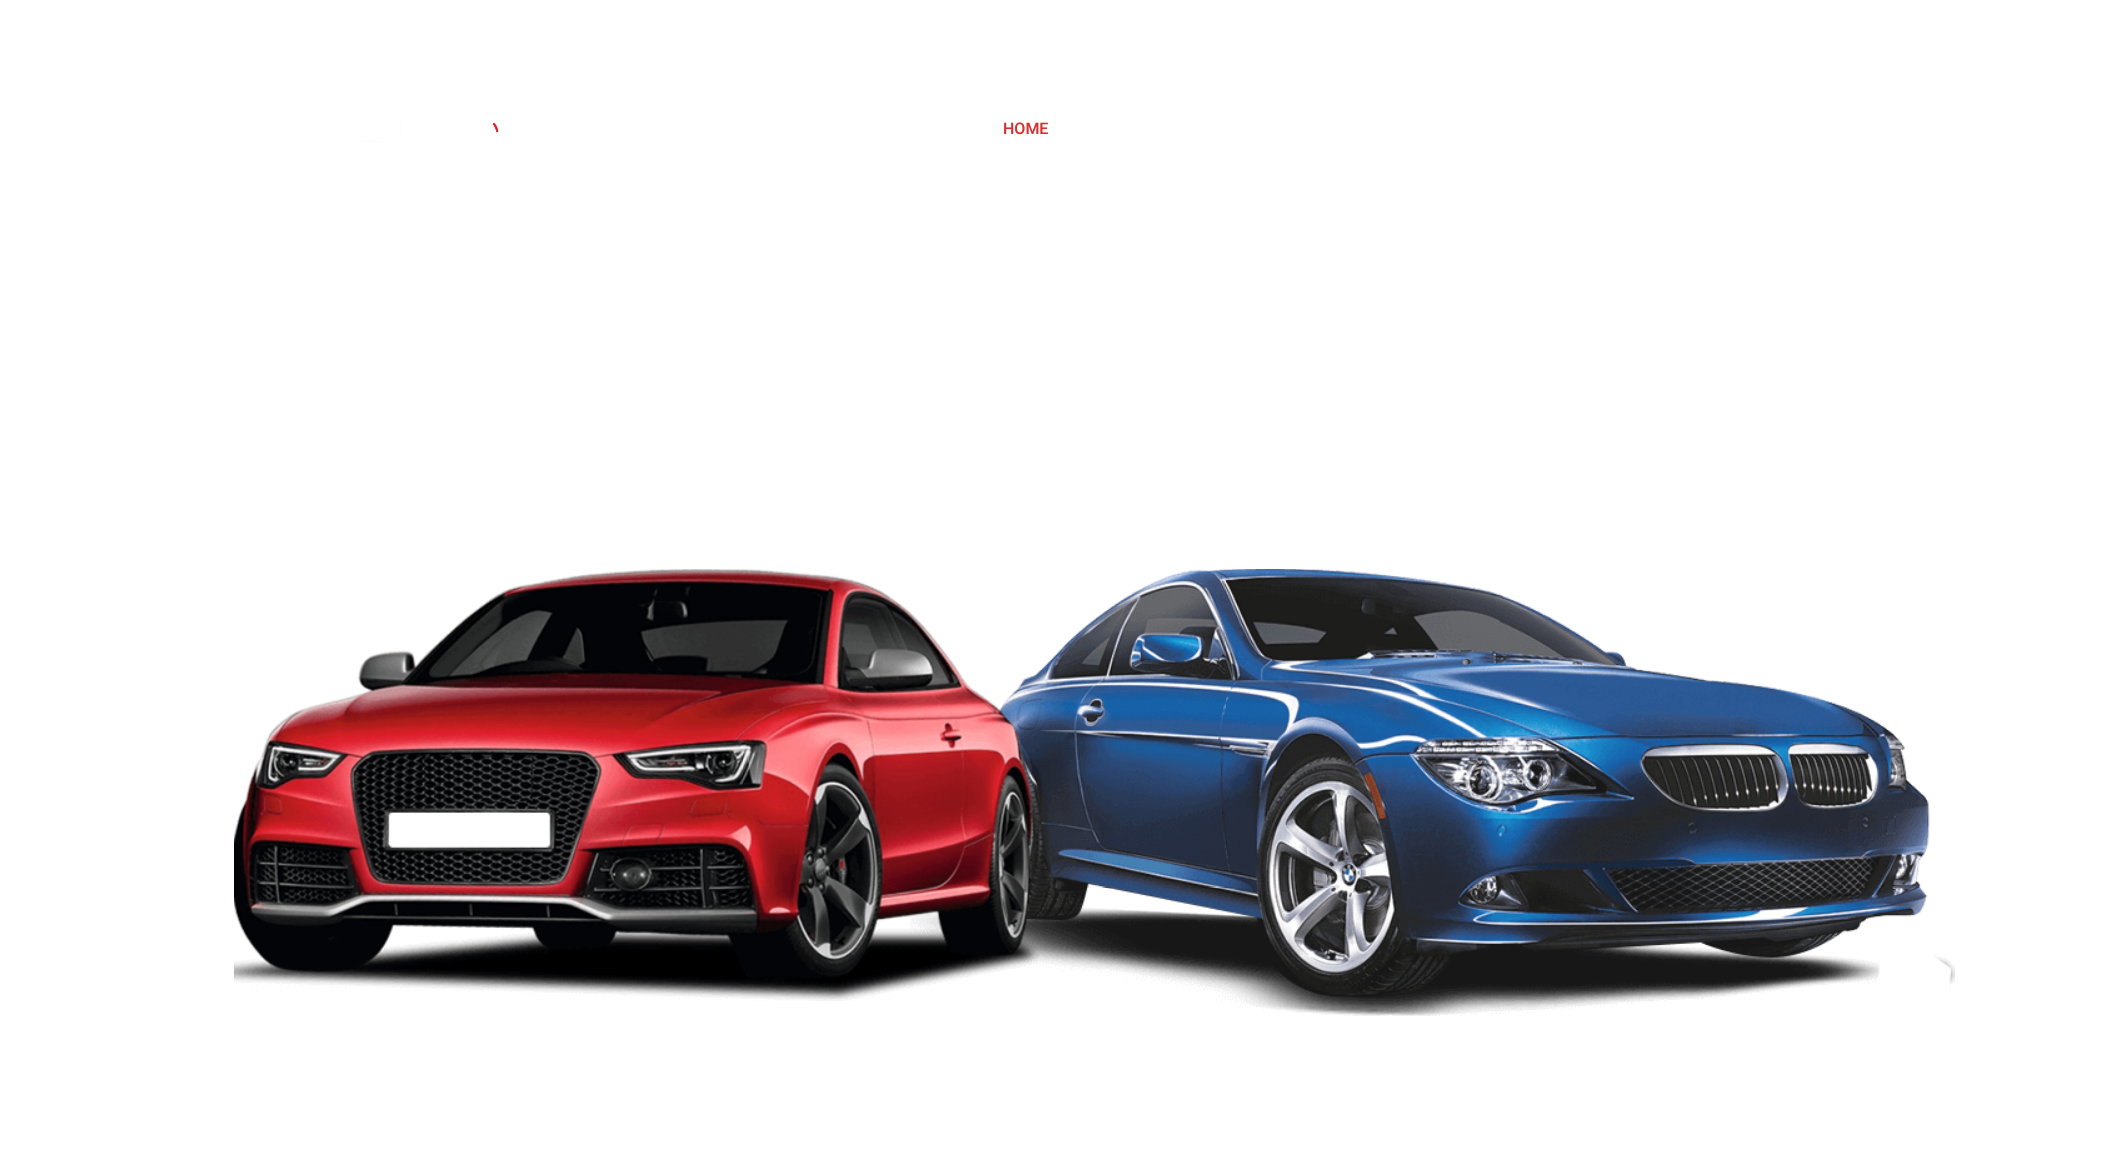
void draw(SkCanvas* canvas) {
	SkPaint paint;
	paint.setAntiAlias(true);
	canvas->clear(0xffffffff);
	canvas->drawImageRect(SkImages::DeferredFromEncodedData(SkData::MakeFromFileName("img1.png")), SkRect::MakeXYWH(365, 122, 134, 20), SkSamplingOptions());
	SkFont f1(fontMgr->matchFamilyStyle("Roboto", SkFontStyle(500, SkFontStyle::kNormal_Width, SkFontStyle::kUpright_Slant)), 16);
	f1.setSubpixel(true);
	paint.setColor(0xffdb2d2e);
	canvas->drawString("HOME", 1003, 134, f1, paint);
	canvas->drawImageRect(SkImages::DeferredFromEncodedData(SkData::MakeFromFileName("img3.png")), SkRect::MakeXYWH(910, 569, 1045, 447), SkSamplingOptions());
	canvas->drawImageRect(SkImages::DeferredFromEncodedData(SkData::MakeFromFileName("img2.png")), SkRect::MakeXYWH(234, 569, 806, 432), SkSamplingOptions());
}
